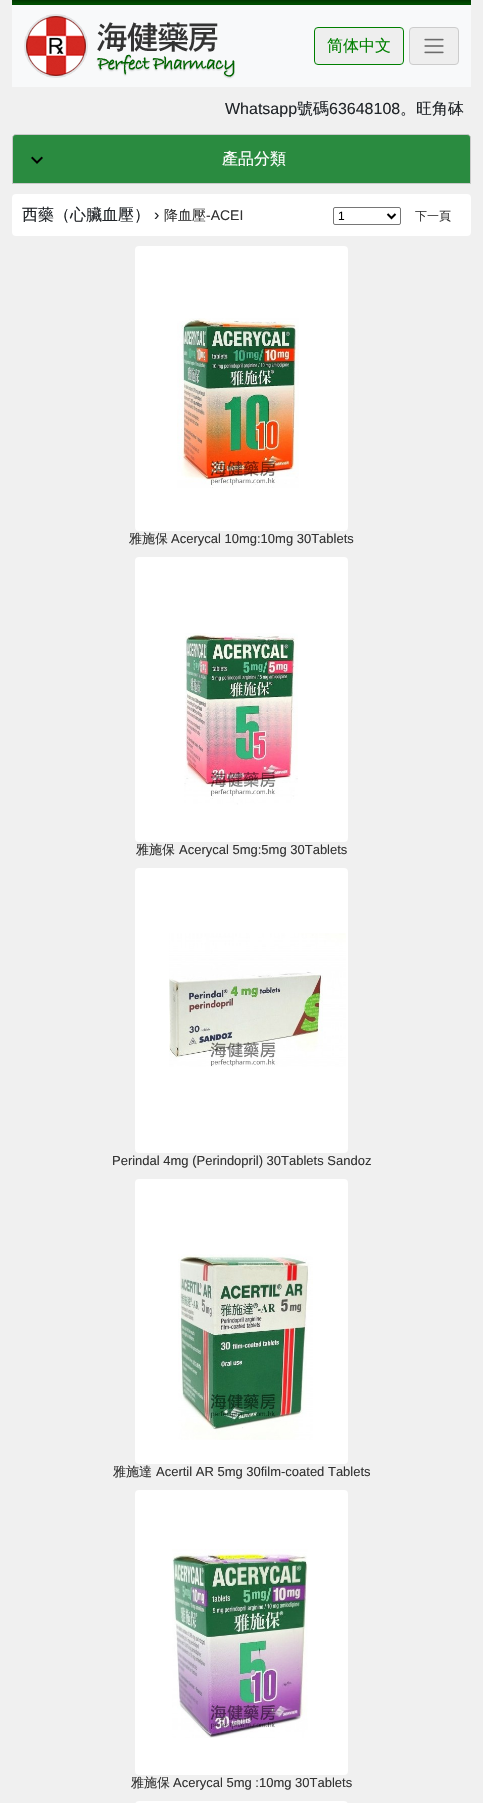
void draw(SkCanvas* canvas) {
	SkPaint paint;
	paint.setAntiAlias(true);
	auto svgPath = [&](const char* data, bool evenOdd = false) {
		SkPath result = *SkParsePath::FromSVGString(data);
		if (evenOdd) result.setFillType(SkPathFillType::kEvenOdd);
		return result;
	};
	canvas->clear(0xfff0f0f0);
	canvas->drawImageRect(SkImages::DeferredFromEncodedData(SkData::MakeFromFileName("img1.png")), SkRect::MakeXYWH(12, 0, 459, 5), SkSamplingOptions());
	paint.setColor(0xfff8f9fa);
	canvas->drawRect(SkRect::MakeXYWH(12, 5, 459, 82), paint);
	canvas->drawImageRect(SkImages::DeferredFromEncodedData(SkData::MakeFromFileName("img2.png")), SkRect::MakeXYWH(24, 14, 211, 65), SkSamplingOptions());
	paint.setColor(0xffeeeeee);
	canvas->drawRoundRect(SkRect::MakeXYWH(314.5, 27.5, 89, 37), 3.5, 3.5, paint);
	paint.setStroke(true);
	paint.setStrokeWidth(1);
	paint.setColor(0xff008000);
	canvas->drawRoundRect(SkRect::MakeXYWH(314.5, 27.5, 89, 37), 3.5, 3.5, paint);
	SkFont f1(fontMgr->matchFamilyStyle("WenQuanYi Zen Hei", SkFontStyle(500, SkFontStyle::kNormal_Width, SkFontStyle::kUpright_Slant)), 16);
	f1.setSubpixel(true);
	paint.setStroke(false);
	canvas->drawString("简体中文", 327, 51, f1, paint);
	paint.setColor(0xffeeeeee);
	canvas->drawRoundRect(SkRect::MakeXYWH(409.5, 27.5, 49, 37), 3.5, 3.5, paint);
	paint.setStroke(true);
	paint.setColor(0xffcccccc);
	canvas->drawRoundRect(SkRect::MakeXYWH(409.5, 27.5, 49, 37), 3.5, 3.5, paint);
	canvas->drawImageRect(SkImages::DeferredFromEncodedData(SkData::MakeFromFileName("img3.png")), SkRect::MakeXYWH(424, 38, 20, 16), SkSamplingOptions());
	canvas->save();
	canvas->clipRect(SkRect::MakeXYWH(12, 87, 459, 30));
	SkFont f2(fontMgr->matchFamilyStyle("Liberation Sans", SkFontStyle::Normal()), 16);
	f2.setSubpixel(true);
	paint.setStroke(false);
	paint.setColor(0xff212529);
	canvas->drawString("Whatsapp", 225, 114, f2, paint);
	canvas->restore();
	canvas->drawString("號碼", 297, 114, f1, paint);
	canvas->drawString("63648108", 329, 114, f2, paint);
	canvas->drawString("。旺角砵", 400, 114, f1, paint);
	paint.setColor(0xff2a8b40);
	canvas->drawPath(svgPath("M16 134.5H467C469 134.5 470.5 136 470.5 138V183.5H12.5V138C12.5 136 14 134.5 16 134.5Z"), paint);
	paint.setStroke(true);
	paint.setColor(0xffcacaca);
	canvas->drawPath(svgPath("M16 134.5H467C469 134.5 470.5 136 470.5 138V183.5H12.5V138C12.5 136 14 134.5 16 134.5Z"), paint);
	canvas->drawImageRect(SkImages::DeferredFromEncodedData(SkData::MakeFromFileName("img4.png")), SkRect::MakeXYWH(31, 156, 12, 8), SkSamplingOptions());
	paint.setStroke(false);
	paint.setColor(0xffffffff);
	canvas->drawString("產品分類", 222, 164, f1, paint);
	canvas->drawRoundRect(SkRect::MakeXYWH(12, 194, 459, 42), 4, 4, paint);
	paint.setColor(0xff212529);
	canvas->drawString("西藥（心臟血壓）", 22, 220, f1, paint);
	canvas->drawString("›", 154, 220, f2, paint);
	SkFont f3(fontMgr->matchFamilyStyle("WenQuanYi Zen Hei", SkFontStyle(500, SkFontStyle::kNormal_Width, SkFontStyle::kUpright_Slant)), 14);
	f3.setSubpixel(true);
	paint.setColor(0xff333333);
	canvas->drawString("降血壓", 164, 220, f3, paint);
	SkFont f4(fontMgr->matchFamilyStyle("Liberation Sans", SkFontStyle::Normal()), 14);
	f4.setSubpixel(true);
	canvas->drawString("-ACEI", 206, 220, f4, paint);
	paint.setStroke(true);
	paint.setColor(0xff767676);
	canvas->drawRoundRect(SkRect::MakeXYWH(333.5, 207.5, 67, 17), 1.5, 1.5, paint);
	paint.setStrokeWidth(2);
	paint.setColor(0xff000000);
	canvas->drawPath(svgPath("M387.5 214L391.5 218L395.5 214"), paint);
	SkFont f5(fontMgr->matchFamilyStyle("Liberation Sans", SkFontStyle::Normal()), 12);
	f5.setSubpixel(true);
	paint.setStroke(false);
	canvas->drawString("1", 338, 220, f5, paint);
	SkFont f6(fontMgr->matchFamilyStyle("WenQuanYi Zen Hei", SkFontStyle(500, SkFontStyle::kNormal_Width, SkFontStyle::kUpright_Slant)), 12);
	f6.setSubpixel(true);
	paint.setColor(0xff333333);
	canvas->drawString("下一頁", 415, 220, f6, paint);
	paint.setColor(0xffffffff);
	canvas->drawRoundRect(SkRect::MakeXYWH(136, 247, 211, 283), 3, 3, paint);
	paint.setStroke(true);
	canvas->drawRoundRect(SkRect::MakeXYWH(136, 247, 211, 283), 3, 3, paint);
	canvas->drawImageRect(SkImages::DeferredFromEncodedData(SkData::MakeFromFileName("img5.png")), SkRect::MakeXYWH(177, 318, 122, 170), SkSamplingOptions());
	SkFont f7(fontMgr->matchFamilyStyle("WenQuanYi Zen Hei", SkFontStyle(500, SkFontStyle::kNormal_Width, SkFontStyle::kUpright_Slant)), 13);
	f7.setSubpixel(true);
	paint.setStroke(false);
	paint.setColor(0xff333333);
	canvas->drawString("雅施保", 129, 543, f7, paint);
	SkFont f8(fontMgr->matchFamilyStyle("Liberation Sans", SkFontStyle::Normal()), 13);
	f8.setSubpixel(true);
	canvas->drawString("Acerycal 10mg:10mg 30Tablets", 171, 543, f8, paint);
	paint.setColor(0xffffffff);
	canvas->drawRoundRect(SkRect::MakeXYWH(136, 558, 211, 283), 3, 3, paint);
	paint.setStroke(true);
	canvas->drawRoundRect(SkRect::MakeXYWH(136, 558, 211, 283), 3, 3, paint);
	canvas->drawImageRect(SkImages::DeferredFromEncodedData(SkData::MakeFromFileName("img6.png")), SkRect::MakeXYWH(184, 633, 114, 172), SkSamplingOptions());
	paint.setStroke(false);
	paint.setColor(0xff333333);
	canvas->drawString("雅施保", 136, 854, f7, paint);
	canvas->drawString("Acerycal 5mg:5mg 30Tablets", 179, 854, f8, paint);
	paint.setColor(0xffffffff);
	canvas->drawRoundRect(SkRect::MakeXYWH(136, 869, 211, 283), 3, 3, paint);
	paint.setStroke(true);
	canvas->drawRoundRect(SkRect::MakeXYWH(136, 869, 211, 283), 3, 3, paint);
	canvas->drawImageRect(SkImages::DeferredFromEncodedData(SkData::MakeFromFileName("img7.png")), SkRect::MakeXYWH(169, 933, 177, 134), SkSamplingOptions());
	paint.setStroke(false);
	paint.setColor(0xff333333);
	canvas->drawString("Perindal 4mg (Perindopril) 30Tablets Sandoz", 112, 1165, f8, paint);
	paint.setColor(0xffffffff);
	canvas->drawRoundRect(SkRect::MakeXYWH(136, 1180, 211, 283), 3, 3, paint);
	paint.setStroke(true);
	canvas->drawRoundRect(SkRect::MakeXYWH(136, 1180, 211, 283), 3, 3, paint);
	canvas->drawImageRect(SkImages::DeferredFromEncodedData(SkData::MakeFromFileName("img8.png")), SkRect::MakeXYWH(178, 1254, 135, 186), SkSamplingOptions());
	paint.setStroke(false);
	paint.setColor(0xff333333);
	canvas->drawString("雅施達", 113, 1476, f7, paint);
	canvas->drawString("Acertil AR 5mg 30film-coated Tablets", 156, 1476, f8, paint);
	paint.setColor(0xffffffff);
	canvas->drawRoundRect(SkRect::MakeXYWH(136, 1491, 211, 283), 3, 3, paint);
	paint.setStroke(true);
	canvas->drawRoundRect(SkRect::MakeXYWH(136, 1491, 211, 283), 3, 3, paint);
	canvas->drawImageRect(SkImages::DeferredFromEncodedData(SkData::MakeFromFileName("img9.png")), SkRect::MakeXYWH(172, 1549, 136, 189), SkSamplingOptions());
	paint.setStroke(false);
	paint.setColor(0xff333333);
	canvas->drawString("雅施保", 131, 1787, f7, paint);
	canvas->drawString("Acerycal 5mg :10mg 30Tablets", 173, 1787, f8, paint);
	paint.setStroke(true);
	paint.setColor(0xffffffff);
	canvas->drawRoundRect(SkRect::MakeXYWH(136, 1802, 211, 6), 3, 3, paint);
}
